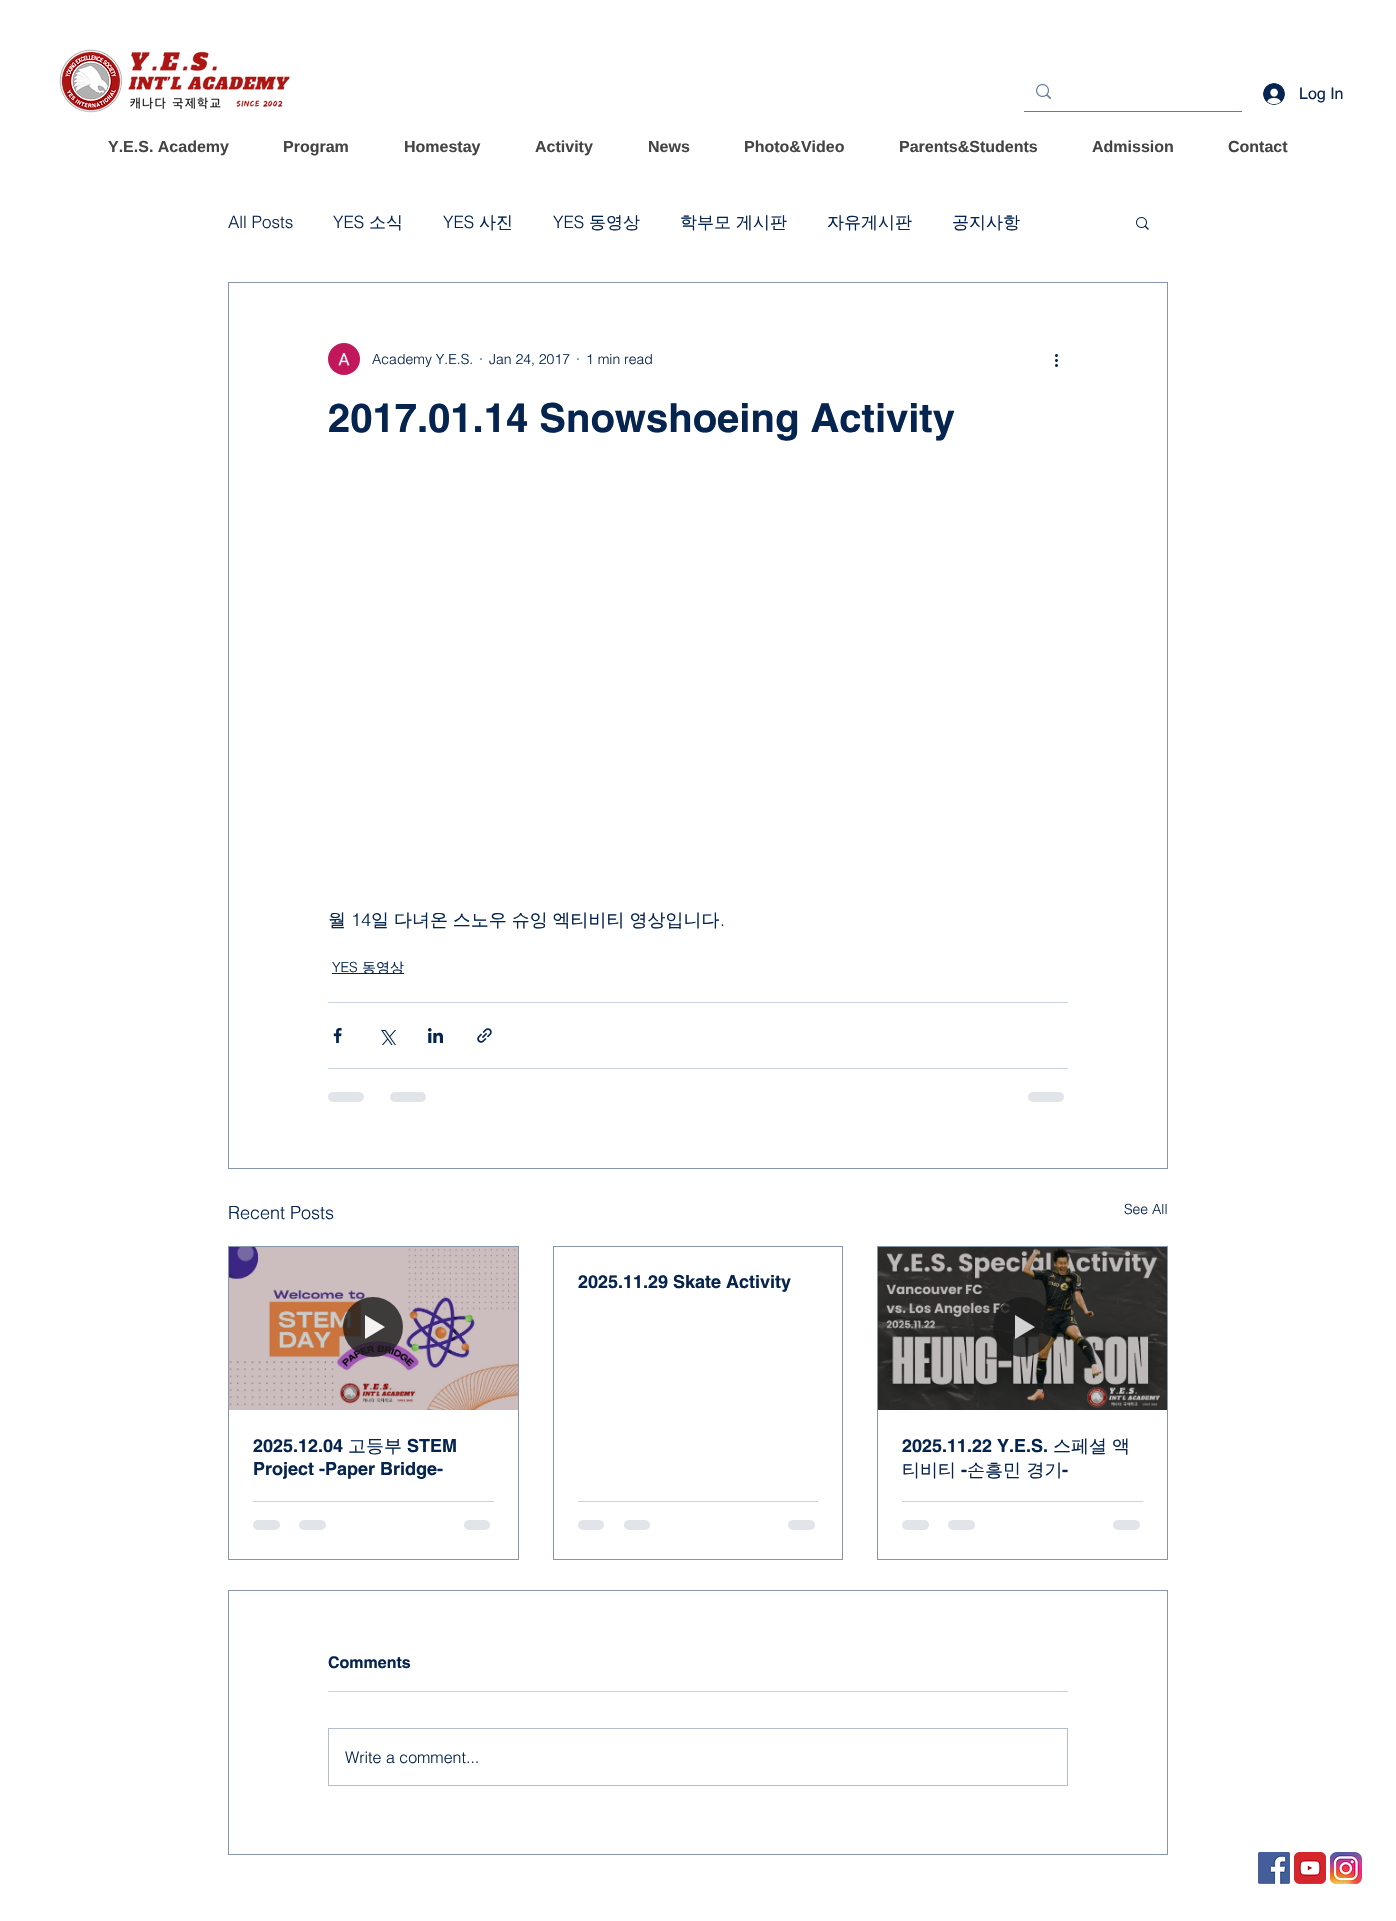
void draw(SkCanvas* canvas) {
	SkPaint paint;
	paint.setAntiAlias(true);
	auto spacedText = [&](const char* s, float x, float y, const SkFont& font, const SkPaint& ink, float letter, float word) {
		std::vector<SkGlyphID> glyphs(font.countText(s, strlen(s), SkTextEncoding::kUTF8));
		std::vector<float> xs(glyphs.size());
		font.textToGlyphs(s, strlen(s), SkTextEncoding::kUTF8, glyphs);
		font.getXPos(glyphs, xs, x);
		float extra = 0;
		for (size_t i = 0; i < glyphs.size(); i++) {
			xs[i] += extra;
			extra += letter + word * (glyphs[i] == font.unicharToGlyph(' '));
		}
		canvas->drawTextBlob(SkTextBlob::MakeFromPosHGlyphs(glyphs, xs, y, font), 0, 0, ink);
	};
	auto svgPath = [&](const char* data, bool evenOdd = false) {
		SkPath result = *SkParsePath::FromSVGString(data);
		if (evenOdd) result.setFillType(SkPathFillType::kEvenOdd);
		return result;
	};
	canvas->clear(0xffffffff);
	canvas->drawImageRect(SkImages::DeferredFromEncodedData(SkData::MakeFromFileName("img1.png")), SkRect::MakeXYWH(59, 49, 231, 64), SkSamplingOptions());
	paint.setColor(0xff697c95);
	canvas->drawRect(SkRect::MakeXYWH(1024, 111, 218, 1), paint);
	canvas->drawImageRect(SkImages::DeferredFromEncodedData(SkData::MakeFromFileName("img2.png")), SkRect::MakeXYWH(1036, 84, 15, 15), SkSamplingOptions());
	canvas->drawImageRect(SkImages::DeferredFromEncodedData(SkData::MakeFromFileName("img3.png")), SkRect::MakeXYWH(1263, 83, 22, 22), SkSamplingOptions());
	SkFont f1(fontMgr->matchFamilyStyle("helvetica", SkFontStyle::Normal()), 16);
	f1.setSubpixel(true);
	paint.setColor(0xff05244f);
	canvas->drawString("Log In", 1299, 99, f1, paint);
	SkFont f2(fontMgr->matchFamilyStyle("Liberation Sans", SkFontStyle::Bold()), 16);
	f2.setSubpixel(true);
	paint.setColor(0xff444444);
	canvas->drawString("Y.E.S. Academy", 108, 152, f2, paint);
	canvas->drawString("Program", 283, 152, f2, paint);
	canvas->drawString("Homestay", 404, 152, f2, paint);
	canvas->drawString("Activity", 535, 152, f2, paint);
	canvas->drawString("News", 648, 152, f2, paint);
	canvas->drawString("Photo&Video", 744, 152, f2, paint);
	canvas->drawString("Parents&Students", 899, 152, f2, paint);
	canvas->drawString("Admission", 1092, 152, f2, paint);
	canvas->drawString("Contact", 1228, 152, f2, paint);
	SkFont f3(fontMgr->matchFamilyStyle("helvetica", SkFontStyle(300, SkFontStyle::kNormal_Width, SkFontStyle::kUpright_Slant)), 17);
	f3.setSubpixel(true);
	paint.setColor(0xff05244f);
	canvas->drawString("All Posts", 228, 228, f3, paint);
	canvas->drawString("YES", 333, 228, f3, paint);
	SkFont f4(fontMgr->matchFamilyStyle("WenQuanYi Zen Hei", SkFontStyle(500, SkFontStyle::kNormal_Width, SkFontStyle::kUpright_Slant)), 17);
	f4.setSubpixel(true);
	canvas->drawString("소식", 369, 228, f4, paint);
	canvas->drawString("YES", 443, 228, f3, paint);
	canvas->drawString("사진", 479, 228, f4, paint);
	canvas->drawString("YES", 553, 228, f3, paint);
	canvas->drawString("동영상", 589, 228, f4, paint);
	canvas->drawString("학부모 게시판", 680, 228, f4, paint);
	canvas->drawString("자유게시판", 827, 228, f4, paint);
	canvas->drawString("공지사항", 952, 228, f4, paint);
	canvas->drawImageRect(SkImages::DeferredFromEncodedData(SkData::MakeFromFileName("img4.png")), SkRect::MakeXYWH(1136, 217, 13, 13), SkSamplingOptions());
	paint.setStroke(true);
	paint.setStrokeWidth(1);
	paint.setColor(0xff8796ab);
	canvas->drawRect(SkRect::MakeXYWH(228.5, 282.5, 939, 886), paint);
	canvas->drawImageRect(SkImages::DeferredFromEncodedData(SkData::MakeFromFileName("img5.png")), SkRect::MakeXYWH(328, 343, 32, 32), SkSamplingOptions());
	SkFont f5(fontMgr->matchFamilyStyle("helvetica", SkFontStyle(300, SkFontStyle::kNormal_Width, SkFontStyle::kUpright_Slant)), 14);
	f5.setSubpixel(true);
	paint.setStroke(false);
	paint.setColor(0xff05244f);
	canvas->drawString("Academy Y.E.S.", 372, 364, f5, paint);
	canvas->drawString("·", 479, 364, f5, paint);
	canvas->drawString("Jan 24, 2017", 489, 364, f5, paint);
	canvas->drawString("·", 576, 364, f5, paint);
	canvas->drawString("1 min read", 586, 364, f5, paint);
	canvas->drawImageRect(SkImages::DeferredFromEncodedData(SkData::MakeFromFileName("img6.png")), SkRect::MakeXYWH(1055, 354, 3, 13), SkSamplingOptions());
	SkFont f6(fontMgr->matchFamilyStyle("helvetica", SkFontStyle::Bold()), 40);
	f6.setSubpixel(true);
	canvas->drawString("2017.01.14 Snowshoeing Activity", 328, 432, f6, paint);
	SkFont f7(fontMgr->matchFamilyStyle("WenQuanYi Zen Hei", SkFontStyle(500, SkFontStyle::kNormal_Width, SkFontStyle::kUpright_Slant)), 18);
	f7.setSubpixel(true);
	canvas->drawString("월", 328, 926, f7, paint);
	SkFont f8(fontMgr->matchFamilyStyle("helvetica", SkFontStyle(300, SkFontStyle::kNormal_Width, SkFontStyle::kUpright_Slant)), 18);
	f8.setSubpixel(true);
	canvas->drawString("14", 351, 926, f8, paint);
	spacedText("일 다녀온 스노우 슈잉 엑티비티 영상입니다", 371, 926, f7, paint, 0, -0.5);
	canvas->drawString(".", 720, 926, f8, paint);
	canvas->drawString("YES", 332, 972, f5, paint);
	canvas->drawRect(SkRect::MakeXYWH(332, 973, 72, 1), paint);
	SkFont f9(fontMgr->matchFamilyStyle("WenQuanYi Zen Hei", SkFontStyle(500, SkFontStyle::kNormal_Width, SkFontStyle::kUpright_Slant)), 14);
	f9.setSubpixel(true);
	canvas->drawString("동영상", 362, 972, f9, paint);
	paint.setColor(0xffcdd3dc);
	canvas->drawRect(SkRect::MakeXYWH(328, 1002, 740, 1), paint);
	canvas->drawImageRect(SkImages::DeferredFromEncodedData(SkData::MakeFromFileName("img7.png")), SkRect::MakeXYWH(333, 1028, 9, 15), SkSamplingOptions());
	canvas->drawImageRect(SkImages::DeferredFromEncodedData(SkData::MakeFromFileName("img8.png")), SkRect::MakeXYWH(381, 1030, 15, 15), SkSamplingOptions());
	canvas->drawImageRect(SkImages::DeferredFromEncodedData(SkData::MakeFromFileName("img9.png")), SkRect::MakeXYWH(428, 1028, 15, 15), SkSamplingOptions());
	canvas->drawImageRect(SkImages::DeferredFromEncodedData(SkData::MakeFromFileName("img10.png")), SkRect::MakeXYWH(477, 1028, 15, 15), SkSamplingOptions());
	canvas->drawRect(SkRect::MakeXYWH(328, 1068, 740, 1), paint);
	paint.setColor(0xffe1e5ea);
	canvas->drawRoundRect(SkRect::MakeXYWH(328, 1092, 36, 10), 5, 5, paint);
	canvas->drawRoundRect(SkRect::MakeXYWH(390, 1092, 36, 10), 5, 5, paint);
	canvas->drawRoundRect(SkRect::MakeXYWH(1028, 1092, 36, 10), 5, 5, paint);
	paint.setColor(0xff05244f);
	canvas->drawString("Recent Posts", 228, 1219, f8, paint);
	canvas->drawString("See All", 1124, 1214, f5, paint);
	paint.setStroke(true);
	paint.setColor(0xff8796ab);
	canvas->drawRect(SkRect::MakeXYWH(553.5, 1246.5, 289, 313), paint);
	SkFont f10(fontMgr->matchFamilyStyle("helvetica", SkFontStyle::Bold()), 18);
	f10.setSubpixel(true);
	paint.setStroke(false);
	paint.setColor(0xff05244f);
	canvas->drawString("2025.11.29 Skate Activity", 578, 1288, f10, paint);
	paint.setColor(0xffcdd3dc);
	canvas->drawRect(SkRect::MakeXYWH(578, 1501, 240, 1), paint);
	paint.setColor(0xffe1e5ea);
	canvas->drawRoundRect(SkRect::MakeXYWH(578, 1520, 26, 10), 5, 5, paint);
	canvas->drawRoundRect(SkRect::MakeXYWH(624, 1520, 26, 10), 5, 5, paint);
	canvas->drawRoundRect(SkRect::MakeXYWH(788, 1520, 27, 10), 5, 5, paint);
	paint.setStroke(true);
	paint.setColor(0xff8796ab);
	canvas->drawRect(SkRect::MakeXYWH(228.5, 1246.5, 290, 313), paint);
	canvas->drawImageRect(SkImages::DeferredFromEncodedData(SkData::MakeFromFileName("img11.png")), SkRect::MakeXYWH(229, 1247, 289, 163), SkSamplingOptions());
	paint.setStroke(false);
	paint.setColor(0xcc1a1a1a);
	canvas->drawCircle(373, 1327, 30, paint);
	paint.setColor(0xfff5f2f2);
	canvas->drawPath(svgPath("M365 1315V1339L385 1327Z"), paint);
	paint.setColor(0xff05244f);
	canvas->drawString("2025.12.04", 253, 1452, f10, paint);
	canvas->drawString("고등부", 348, 1452, f7, paint);
	canvas->drawString("STEM", 407, 1452, f10, paint);
	canvas->drawString("Project -Paper Bridge-", 253, 1475, f10, paint);
	paint.setColor(0xffcdd3dc);
	canvas->drawRect(SkRect::MakeXYWH(253, 1501, 241, 1), paint);
	paint.setColor(0xffe1e5ea);
	canvas->drawRoundRect(SkRect::MakeXYWH(253, 1520, 27, 10), 5, 5, paint);
	canvas->drawRoundRect(SkRect::MakeXYWH(299, 1520, 27, 10), 5, 5, paint);
	canvas->drawRoundRect(SkRect::MakeXYWH(464, 1520, 26, 10), 5, 5, paint);
	paint.setStroke(true);
	paint.setColor(0xff8796ab);
	canvas->drawRect(SkRect::MakeXYWH(877.5, 1246.5, 290, 313), paint);
	canvas->drawImageRect(SkImages::DeferredFromEncodedData(SkData::MakeFromFileName("img12.png")), SkRect::MakeXYWH(878, 1247, 289, 163), SkSamplingOptions());
	paint.setStroke(false);
	paint.setColor(0xcc1a1a1a);
	canvas->drawCircle(1023, 1327, 30, paint);
	paint.setColor(0xccffffff);
	canvas->drawPath(svgPath("M1015 1315V1339L1035 1327Z"), paint);
	paint.setColor(0xff05244f);
	canvas->drawString("2025.11.22 Y.E.S.", 902, 1452, f10, paint);
	canvas->drawString("스페셜", 1053, 1452, f7, paint);
	canvas->drawString("액", 1112, 1452, f7, paint);
	canvas->drawString("티비티", 902, 1476, f7, paint);
	canvas->drawString("-", 961, 1476, f10, paint);
	canvas->drawString("손흥민 경기", 967, 1476, f7, paint);
	canvas->drawString("-", 1062, 1476, f10, paint);
	paint.setColor(0xffcdd3dc);
	canvas->drawRect(SkRect::MakeXYWH(902, 1501, 241, 1), paint);
	paint.setColor(0xffe1e5ea);
	canvas->drawRoundRect(SkRect::MakeXYWH(902, 1520, 27, 10), 5, 5, paint);
	canvas->drawRoundRect(SkRect::MakeXYWH(948, 1520, 27, 10), 5, 5, paint);
	canvas->drawRoundRect(SkRect::MakeXYWH(1113, 1520, 27, 10), 5, 5, paint);
	paint.setStroke(true);
	paint.setColor(0xff8796ab);
	canvas->drawRect(SkRect::MakeXYWH(228.5, 1590.5, 939, 264), paint);
	SkFont f11(fontMgr->matchFamilyStyle("helvetica", SkFontStyle::Bold()), 16);
	f11.setSubpixel(true);
	paint.setStroke(false);
	paint.setColor(0xff05244f);
	canvas->drawString("Comments", 328, 1668, f11, paint);
	paint.setColor(0xffcdd3dc);
	canvas->drawRect(SkRect::MakeXYWH(328, 1691, 740, 1), paint);
	paint.setStroke(true);
	paint.setColor(0xffb4bdca);
	canvas->drawRect(SkRect::MakeXYWH(328.5, 1728.5, 739, 57), paint);
	SkFont f12(fontMgr->matchFamilyStyle("helvetica", SkFontStyle(300, SkFontStyle::kNormal_Width, SkFontStyle::kUpright_Slant)), 16);
	f12.setSubpixel(true);
	paint.setStroke(false);
	paint.setColor(0xff05244f);
	canvas->drawString("Write a comment...", 345, 1763, f12, paint);
	canvas->drawImageRect(SkImages::DeferredFromEncodedData(SkData::MakeFromFileName("img13.png")), SkRect::MakeXYWH(1258, 1852, 32, 32), SkSamplingOptions());
	canvas->drawImageRect(SkImages::DeferredFromEncodedData(SkData::MakeFromFileName("img14.png")), SkRect::MakeXYWH(1294, 1852, 32, 32), SkSamplingOptions());
	canvas->drawImageRect(SkImages::DeferredFromEncodedData(SkData::MakeFromFileName("img15.png")), SkRect::MakeXYWH(1330, 1852, 32, 32), SkSamplingOptions());
}
